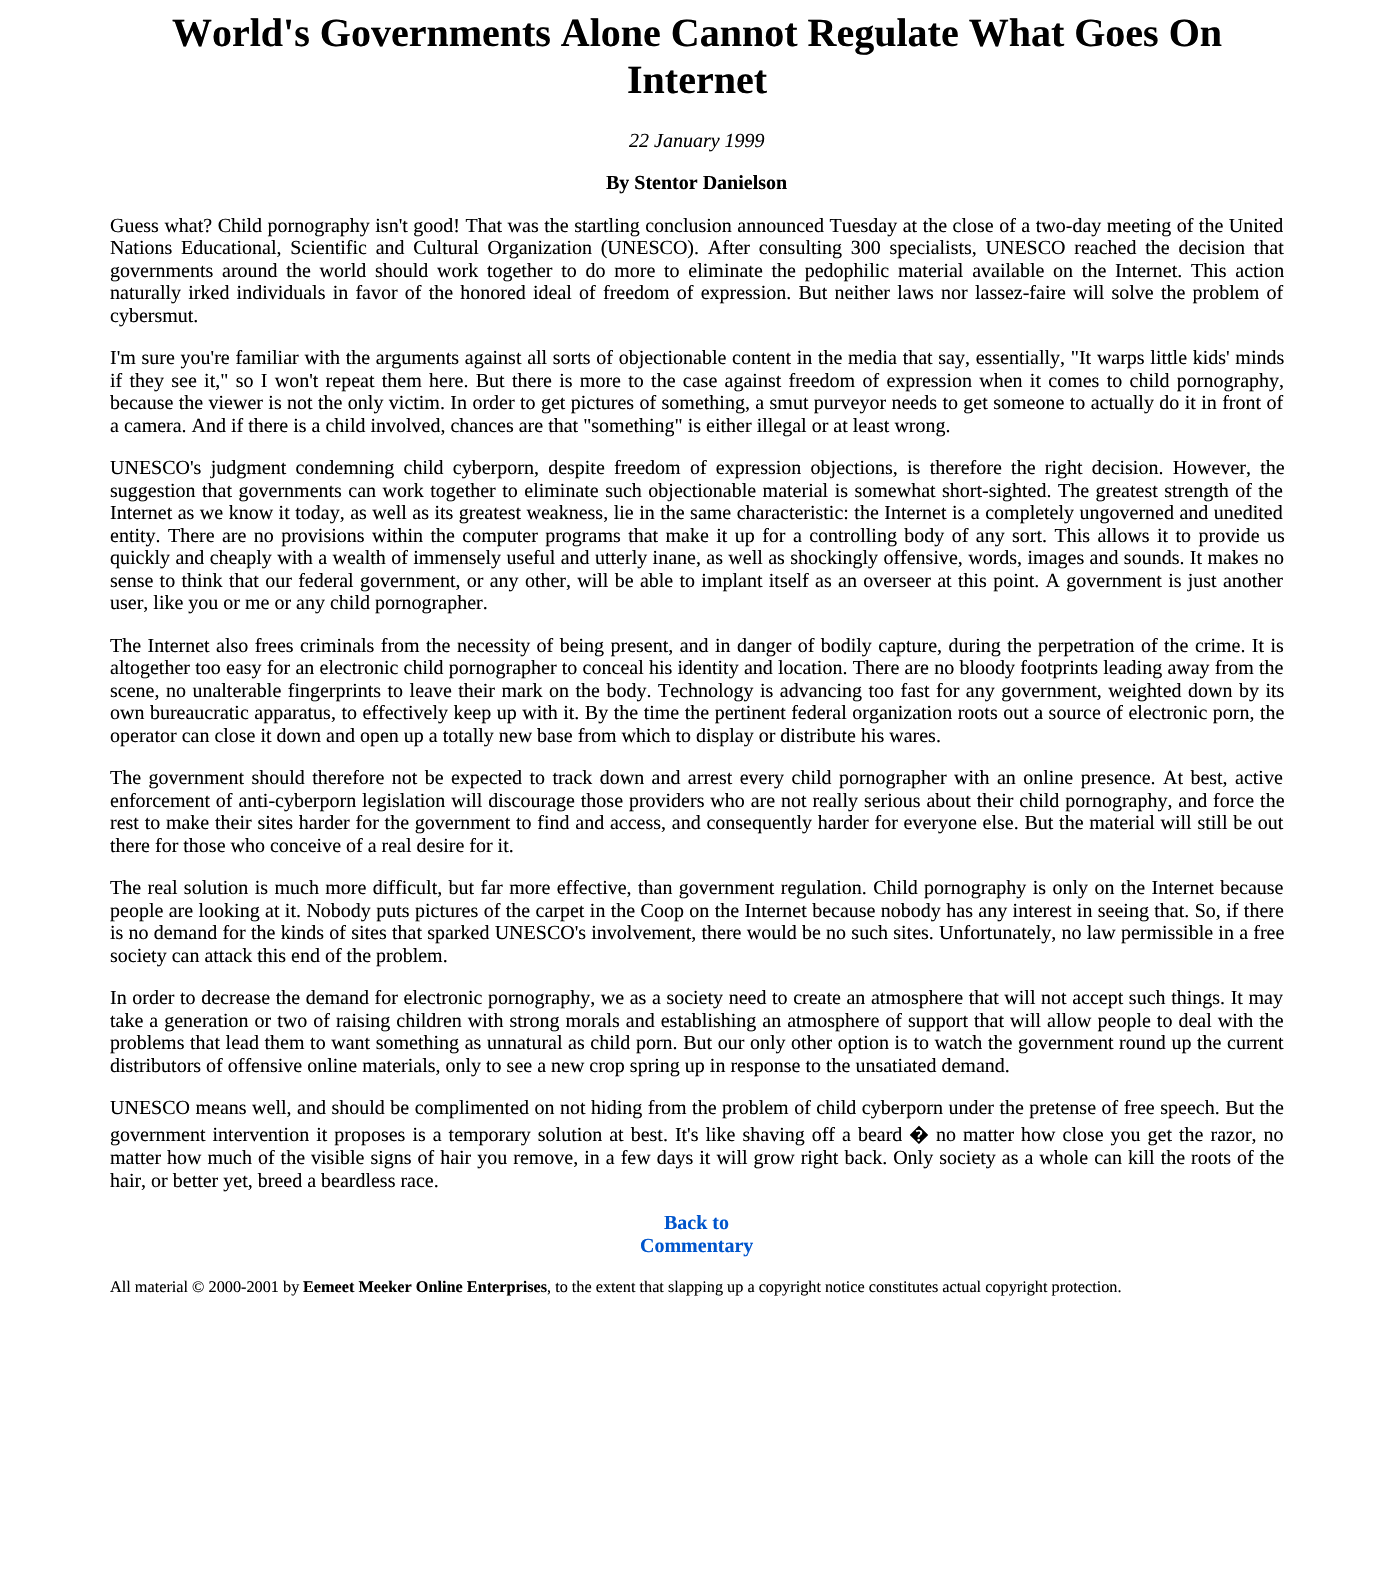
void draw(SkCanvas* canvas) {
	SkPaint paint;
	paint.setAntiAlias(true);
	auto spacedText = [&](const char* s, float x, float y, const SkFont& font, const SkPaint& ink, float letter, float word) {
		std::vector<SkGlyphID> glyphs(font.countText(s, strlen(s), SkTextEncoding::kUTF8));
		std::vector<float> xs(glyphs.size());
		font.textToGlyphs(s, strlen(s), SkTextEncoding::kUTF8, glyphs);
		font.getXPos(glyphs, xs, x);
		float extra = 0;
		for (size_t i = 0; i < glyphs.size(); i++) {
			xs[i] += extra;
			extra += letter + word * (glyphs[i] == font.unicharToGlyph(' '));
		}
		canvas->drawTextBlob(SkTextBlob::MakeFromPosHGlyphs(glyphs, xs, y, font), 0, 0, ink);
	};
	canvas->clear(0xffffffff);
	SkFont f1(fontMgr->matchFamilyStyle("Liberation Serif", SkFontStyle::Bold()), 40);
	f1.setSubpixel(true);
	paint.setColor(0xff000000);
	canvas->drawString("World's Governments Alone Cannot Regulate What Goes On", 172, 46, f1, paint);
	canvas->drawString("Internet", 627, 93, f1, paint);
	SkFont f2(fontMgr->matchFamilyStyle("Liberation Serif", SkFontStyle::Italic()), 20);
	f2.setSubpixel(true);
	canvas->drawString("22 January 1999", 629, 147, f2, paint);
	SkFont f3(fontMgr->matchFamilyStyle("Liberation Serif", SkFontStyle::Bold()), 20);
	f3.setSubpixel(true);
	canvas->drawString("By Stentor Danielson", 606, 189, f3, paint);
	SkFont f4(fontMgr->matchFamilyStyle("Liberation Serif", SkFontStyle::Normal()), 20);
	f4.setSubpixel(true);
	spacedText("Guess what? Child pornography isn't good! That was the startling conclusion announced Tuesday at the close of a two-day meeting of the United", 110, 232, f4, paint, 0, 0.5);
	spacedText("Nations Educational, Scientific and Cultural Organization (UNESCO). After consulting 300 specialists, UNESCO reached the decision that", 110, 254, f4, paint, 0, 3.75);
	spacedText("governments around the world should work together to do more to eliminate the pedophilic material available on the Internet. This action", 110, 277, f4, paint, 0, 3.75);
	spacedText("naturally irked individuals in favor of the honored ideal of freedom of expression. But neither laws nor lassez-faire will solve the problem of", 110, 299, f4, paint, 0, 2.2);
	canvas->drawString("cybersmut.", 110, 322, f4, paint);
	spacedText("I'm sure you're familiar with the arguments against all sorts of objectionable content in the media that say, essentially, \"It warps little kids' minds", 110, 364, f4, paint, 0, 0.7);
	spacedText("if they see it,\" so I won't repeat them here. But there is more to the case against freedom of expression when it comes to child pornography,", 110, 387, f4, paint, 0, 2.3);
	spacedText("because the viewer is not the only victim. In order to get pictures of something, a smut purveyor needs to get someone to actually do it in front of", 110, 409, f4, paint, 0, 0.4);
	canvas->drawString("a camera. And if there is a child involved, chances are that \"something\" is either illegal or at least wrong.", 110, 432, f4, paint);
	spacedText("UNESCO's judgment condemning child cyberporn, despite freedom of expression objections, is therefore the right decision. However, the", 110, 474, f4, paint, 0, 4.25);
	spacedText("suggestion that governments can work together to eliminate such objectionable material is somewhat short-sighted. The greatest strength of the", 110, 497, f4, paint, 0, 1.5);
	spacedText("Internet as we know it today, as well as its greatest weakness, lie in the same characteristic: the Internet is a completely ungoverned and unedited", 110, 519, f4, paint, 0, 0.5);
	spacedText("entity. There are no provisions within the computer programs that make it up for a controlling body of any sort. This allows it to provide us", 110, 542, f4, paint, 0, 2.4);
	spacedText("quickly and cheaply with a wealth of immensely useful and utterly inane, as well as shockingly offensive, words, images and sounds. It makes no", 110, 564, f4, paint, 0, 0.4);
	spacedText("sense to think that our federal government, or any other, will be able to implant itself as an overseer at this point. A government is just another", 110, 587, f4, paint, 0, 1.3);
	canvas->drawString("user, like you or me or any child pornographer.", 110, 609, f4, paint);
	spacedText("The Internet also frees criminals from the necessity of being present, and in danger of bodily capture, during the perpetration of the crime. It is", 110, 652, f4, paint, 0, 1.4);
	spacedText("altogether too easy for an electronic child pornographer to conceal his identity and location. There are no bloody footprints leading away from the", 110, 674, f4, paint, 0, 0.25);
	spacedText("scene, no unalterable fingerprints to leave their mark on the body. Technology is advancing too fast for any government, weighted down by its", 110, 697, f4, paint, 0, 1.5);
	spacedText("own bureaucratic apparatus, to effectively keep up with it. By the time the pertinent federal organization roots out a source of electronic porn, the", 110, 719, f4, paint, 0, 0.5);
	canvas->drawString("operator can close it down and open up a totally new base from which to display or distribute his wares.", 110, 742, f4, paint);
	spacedText("The government should therefore not be expected to track down and arrest every child pornographer with an online presence. At best, active", 110, 784, f4, paint, 0, 2.4);
	spacedText("enforcement of anti-cyberporn legislation will discourage those providers who are not really serious about their child pornography, and force the", 110, 807, f4, paint, 0, 0.9);
	spacedText("rest to make their sites harder for the government to find and access, and consequently harder for everyone else. But the material will still be out", 110, 829, f4, paint, 0, 0.75);
	canvas->drawString("there for those who conceive of a real desire for it.", 110, 852, f4, paint);
	spacedText("The real solution is much more difficult, but far more effective, than government regulation. Child pornography is only on the Internet because", 110, 894, f4, paint, 0, 1.4);
	spacedText("people are looking at it. Nobody puts pictures of the carpet in the Coop on the Internet because nobody has any interest in seeing that. So, if there", 110, 917, f4, paint, 0, 0.4);
	spacedText("is no demand for the kinds of sites that sparked UNESCO's involvement, there would be no such sites. Unfortunately, no law permissible in a free", 110, 939, f4, paint, 0, 0.25);
	canvas->drawString("society can attack this end of the problem.", 110, 962, f4, paint);
	spacedText("In order to decrease the demand for electronic pornography, we as a society need to create an atmosphere that will not accept such things. It may", 110, 1004, f4, paint, 0, 0.6);
	spacedText("take a generation or two of raising children with strong morals and establishing an atmosphere of support that will allow people to deal with the", 110, 1027, f4, paint, 0, 1);
	spacedText("problems that lead them to want something as unnatural as child porn. But our only other option is to watch the government round up the current", 110, 1049, f4, paint, 0, 0.6);
	canvas->drawString("distributors of offensive online materials, only to see a new crop spring up in response to the unsatiated demand.", 110, 1072, f4, paint);
	spacedText("UNESCO means well, and should be complimented on not hiding from the problem of child cyberporn under the pretense of free speech. But the", 110, 1114, f4, paint, 0, 0.5);
	spacedText("government intervention it proposes is a temporary solution at best. It's like shaving off a beard", 110, 1141, f4, paint, 0, 2);
	SkFont f5(fontMgr->matchFamilyStyle("Noto Sans", SkFontStyle::Normal()), 20);
	f5.setSubpixel(true);
	canvas->drawString("�", 909, 1141, f5, paint);
	spacedText("no matter how close you get the razor, no", 936, 1141, f4, paint, 0, 2);
	spacedText("matter how much of the visible signs of hair you remove, in a few days it will grow right back. Only society as a whole can kill the roots of the", 110, 1164, f4, paint, 0, 1);
	canvas->drawString("hair, or better yet, breed a beardless race.", 110, 1187, f4, paint);
	paint.setColor(0xff0055cc);
	canvas->drawString("Back to", 664, 1229, f3, paint);
	canvas->drawString("Commentary", 640, 1252, f3, paint);
	SkFont f6(fontMgr->matchFamilyStyle("Liberation Serif", SkFontStyle::Normal()), 16.25);
	f6.setSubpixel(true);
	paint.setColor(0xff000000);
	canvas->drawString("All material © 2000-2001 by", 110, 1292, f6, paint);
	SkFont f7(fontMgr->matchFamilyStyle("Liberation Serif", SkFontStyle::Bold()), 16.25);
	f7.setSubpixel(true);
	canvas->drawString("Eemeet Meeker Online Enterprises", 303, 1292, f7, paint);
	canvas->drawString(", to the extent that slapping up a copyright notice constitutes actual copyright protection.", 547, 1292, f6, paint);
}
